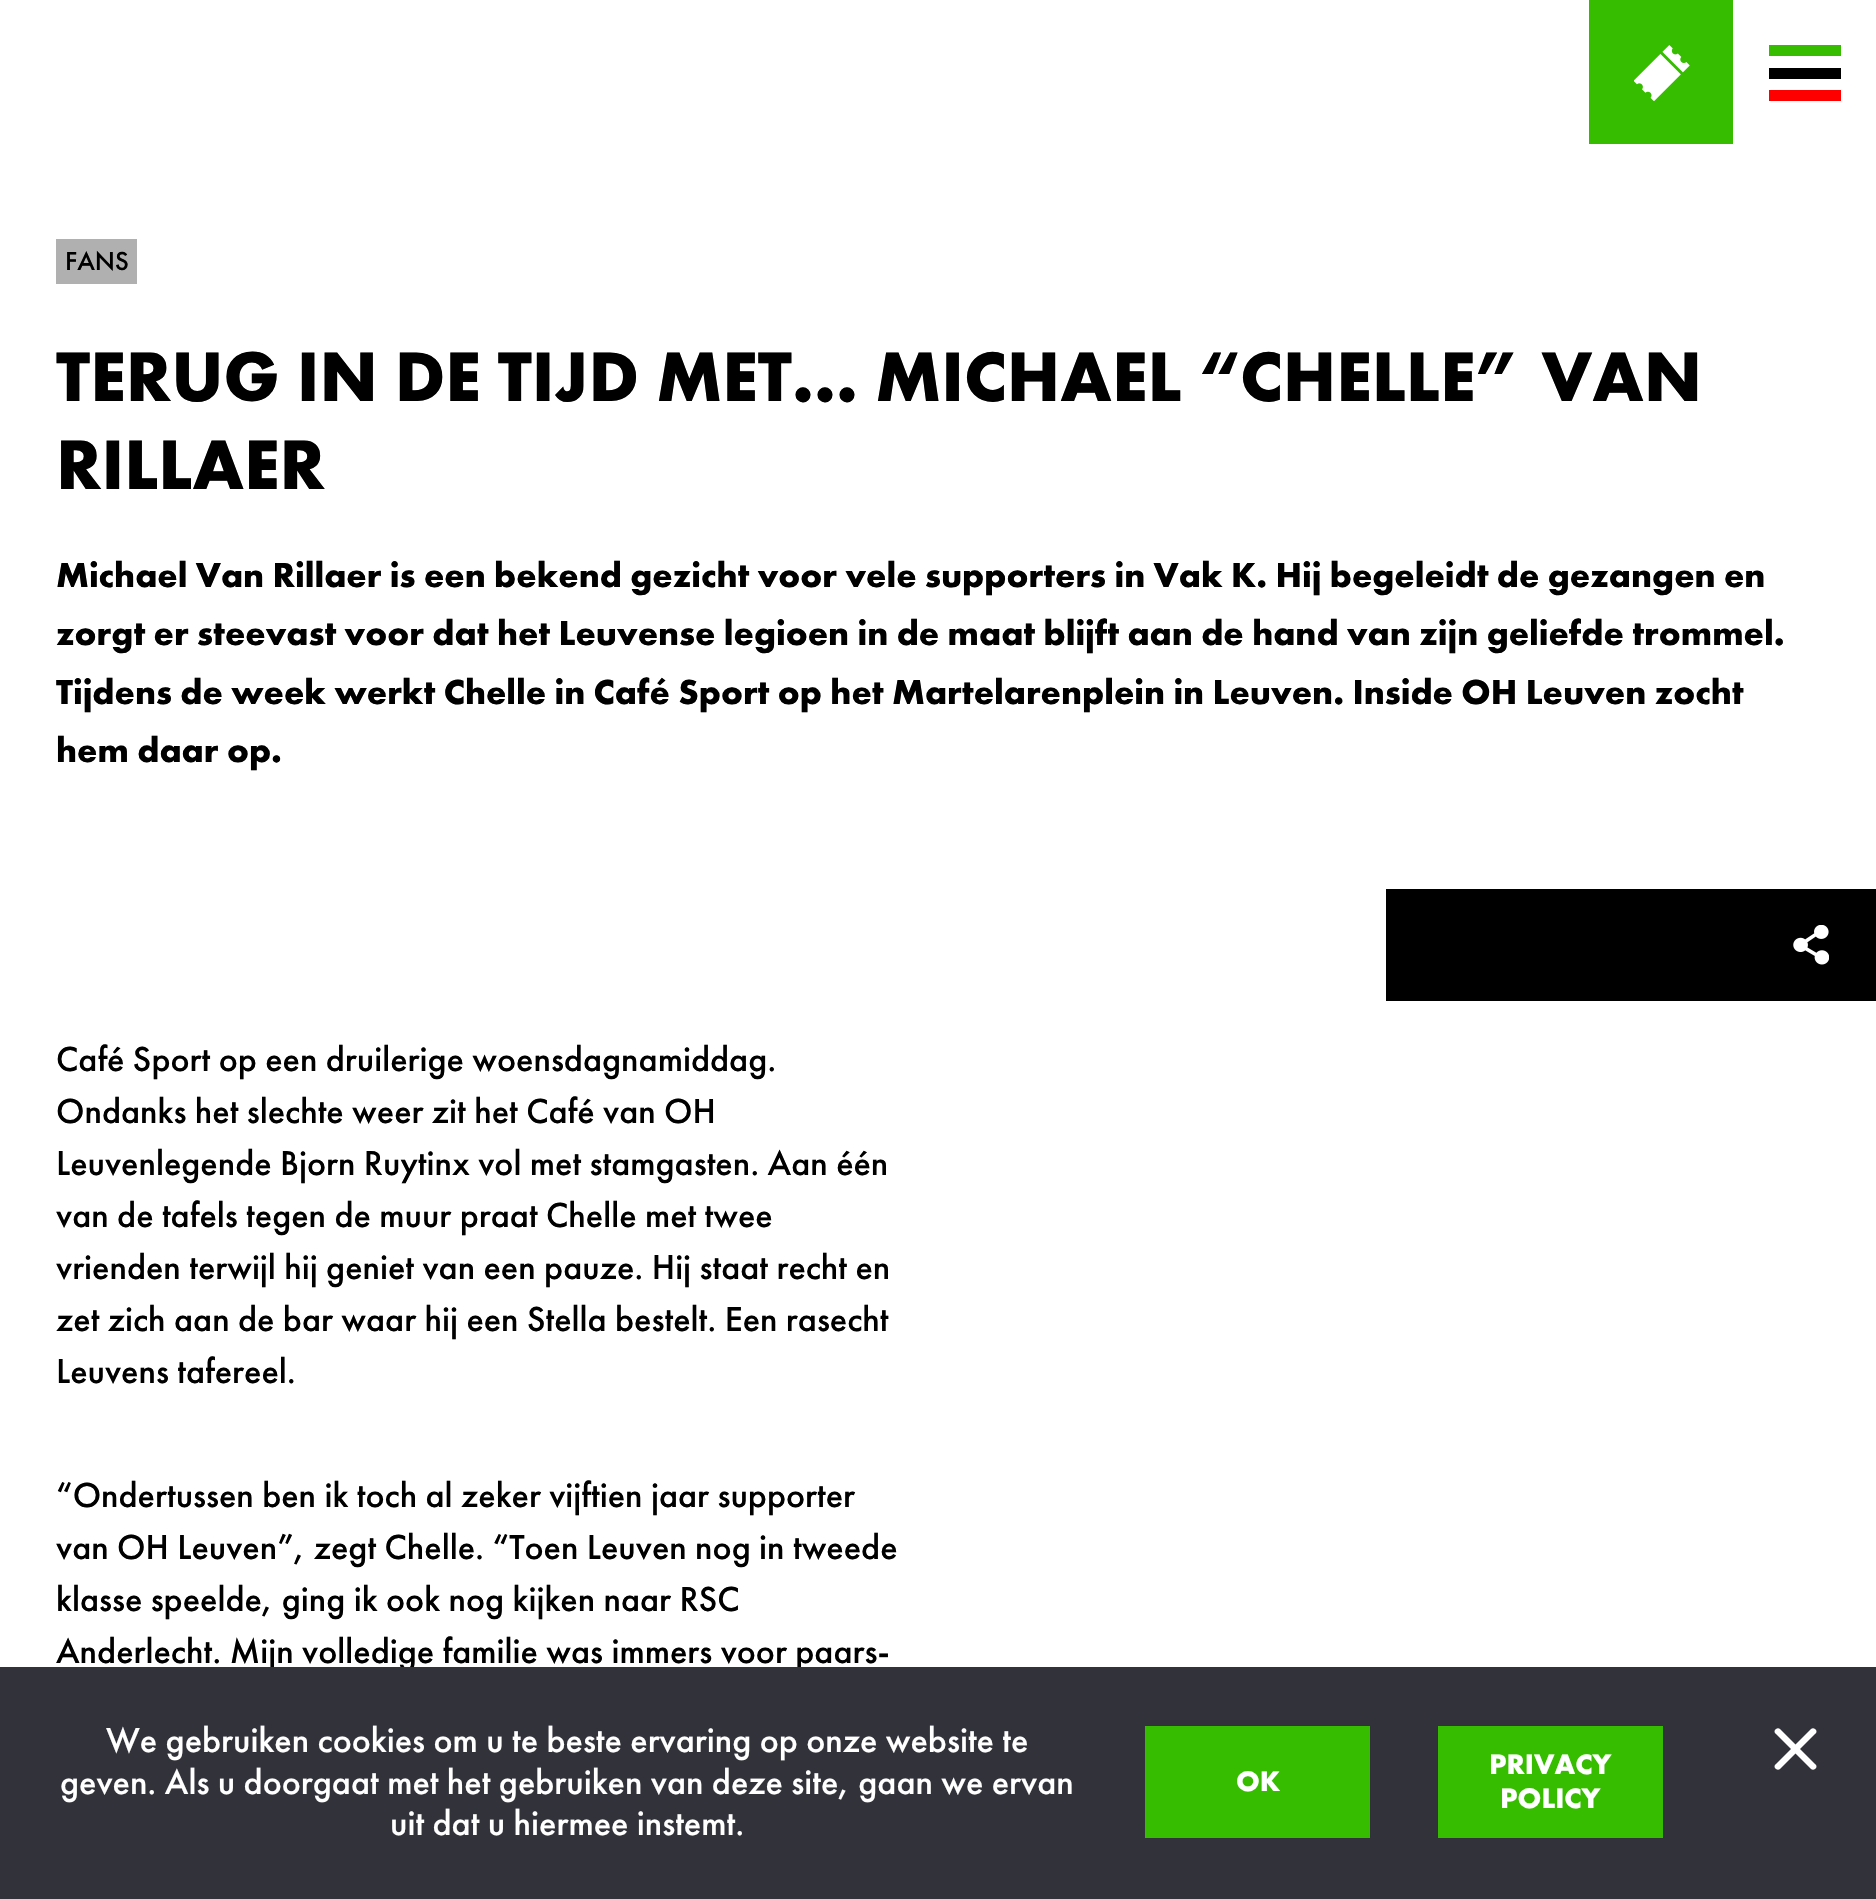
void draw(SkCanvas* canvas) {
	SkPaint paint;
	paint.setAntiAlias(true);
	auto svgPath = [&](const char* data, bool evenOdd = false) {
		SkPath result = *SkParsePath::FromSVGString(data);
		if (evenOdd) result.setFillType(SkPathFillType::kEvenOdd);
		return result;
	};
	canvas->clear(0xffffffff);
	paint.setColor(0xff36bd00);
	canvas->drawRect(SkRect::MakeXYWH(1589, 0, 144, 144), paint);
	canvas->drawImageRect(SkImages::DeferredFromEncodedData(SkData::MakeFromFileName("img1.png")), SkRect::MakeXYWH(1634, 45, 56, 56), SkSamplingOptions());
	paint.setColor(0xff000000);
	canvas->drawRect(SkRect::MakeXYWH(1769, 68, 72, 11), paint);
	paint.setColor(0xff36bd00);
	canvas->drawRect(SkRect::MakeXYWH(1769, 45, 72, 11), paint);
	paint.setColor(0xffff0000);
	canvas->drawRect(SkRect::MakeXYWH(1769, 90, 72, 11), paint);
	paint.setColor(0xffb0b0b0);
	canvas->drawRect(SkRect::MakeXYWH(56, 239, 81, 45), paint);
	SkFont f1(fontMgr->matchFamilyStyle("Futura PT", SkFontStyle(500, SkFontStyle::kNormal_Width, SkFontStyle::kUpright_Slant)), 27);
	f1.setSubpixel(true);
	paint.setColor(0xff000000);
	canvas->drawString("FANS", 65, 270, f1, paint);
	SkFont f2(fontMgr->matchFamilyStyle("Futura PT", SkFontStyle::Bold()), 72.6);
	f2.setSubpixel(true);
	canvas->drawString("TERUG IN DE TIJD MET… MICHAEL “CHELLE” VAN", 56, 401, f2, paint);
	canvas->drawString("RILLAER", 56, 489, f2, paint);
	SkFont f3(fontMgr->matchFamilyStyle("Futura PT", SkFontStyle::Bold()), 36);
	f3.setSubpixel(true);
	canvas->drawString("Michael Van Rillaer is een bekend gezicht voor vele supporters in Vak K. Hij begeleidt de gezangen en", 56, 587, f3, paint);
	canvas->drawString("zorgt er steevast voor dat het Leuvense legioen in de maat blijft aan de hand van zijn geliefde trommel.", 56, 645, f3, paint);
	canvas->drawString("Tijdens de week werkt Chelle in Café Sport op het Martelarenplein in Leuven. Inside OH Leuven zocht", 56, 704, f3, paint);
	canvas->drawString("hem daar op.", 56, 762, f3, paint);
	canvas->drawRect(SkRect::MakeXYWH(1386, 889, 490, 112), paint);
	canvas->drawImageRect(SkImages::DeferredFromEncodedData(SkData::MakeFromFileName("img2.png")), SkRect::MakeXYWH(1793, 925, 36, 40), SkSamplingOptions());
	SkFont f4(fontMgr->matchFamilyStyle("Futura PT", SkFontStyle(500, SkFontStyle::kNormal_Width, SkFontStyle::kUpright_Slant)), 36);
	f4.setSubpixel(true);
	canvas->drawString("Café Sport op een druilerige woensdagnamiddag.", 56, 1071, f4, paint);
	canvas->drawString("Ondanks het slechte weer zit het Café van OH", 56, 1123, f4, paint);
	canvas->drawString("Leuvenlegende Bjorn Ruytinx vol met stamgasten. Aan één", 56, 1175, f4, paint);
	canvas->drawString("van de tafels tegen de muur praat Chelle met twee", 56, 1227, f4, paint);
	canvas->drawString("vrienden terwijl hij geniet van een pauze. Hij staat recht en", 56, 1279, f4, paint);
	canvas->drawString("zet zich aan de bar waar hij een Stella bestelt. Een rasecht", 56, 1331, f4, paint);
	canvas->drawString("Leuvens tafereel.", 56, 1383, f4, paint);
	canvas->drawString("“Ondertussen ben ik toch al zeker vijftien jaar supporter", 56, 1507, f4, paint);
	canvas->drawString("van OH Leuven”, zegt Chelle. “Toen Leuven nog in tweede", 56, 1559, f4, paint);
	canvas->drawString("klasse speelde, ging ik ook nog kijken naar RSC", 56, 1611, f4, paint);
	canvas->drawString("Anderlecht. Mijn volledige familie was immers voor paars-", 56, 1663, f4, paint);
	paint.setColor(0xff32323a);
	canvas->drawRect(SkRect::MakeXYWH(0, 1667, 1876, 232), paint);
	paint.setColor(0xffffffff);
	canvas->drawString("We gebruiken cookies om u te beste ervaring op onze website te", 106, 1752, f4, paint);
	canvas->drawString("geven. Als u doorgaat met het gebruiken van deze site, gaan we ervan", 60, 1794, f4, paint);
	canvas->drawString("uit dat u hiermee instemt.", 390, 1835, f4, paint);
	canvas->drawPath(svgPath("M1815 1729C1817 1730 1817 1733 1815 1734L1780 1769C1779 1770 1777 1770 1776 1769C1774 1768 1774 1765 1776 1764L1811 1729C1812 1728 1814 1728 1815 1729Z"), paint);
	canvas->drawPath(svgPath("M1776 1729C1777 1728 1779 1728 1780 1729L1815 1764C1817 1765 1817 1768 1815 1769C1814 1770 1812 1770 1811 1769L1776 1734C1774 1733 1774 1730 1776 1729Z"), paint);
	paint.setColor(0xff36bd00);
	canvas->drawRect(SkRect::MakeXYWH(1145, 1726, 225, 112), paint);
	SkFont f5(fontMgr->matchFamilyStyle("Futura PT", SkFontStyle::Bold()), 29.25);
	f5.setSubpixel(true);
	paint.setColor(0xffffffff);
	canvas->drawString("OK", 1236, 1791, f5, paint);
	paint.setColor(0xff36bd00);
	canvas->drawRect(SkRect::MakeXYWH(1438, 1726, 225, 112), paint);
	paint.setColor(0xffffffff);
	canvas->drawString("PRIVACY", 1489, 1774, f5, paint);
	canvas->drawString("POLICY", 1500, 1808, f5, paint);
}
